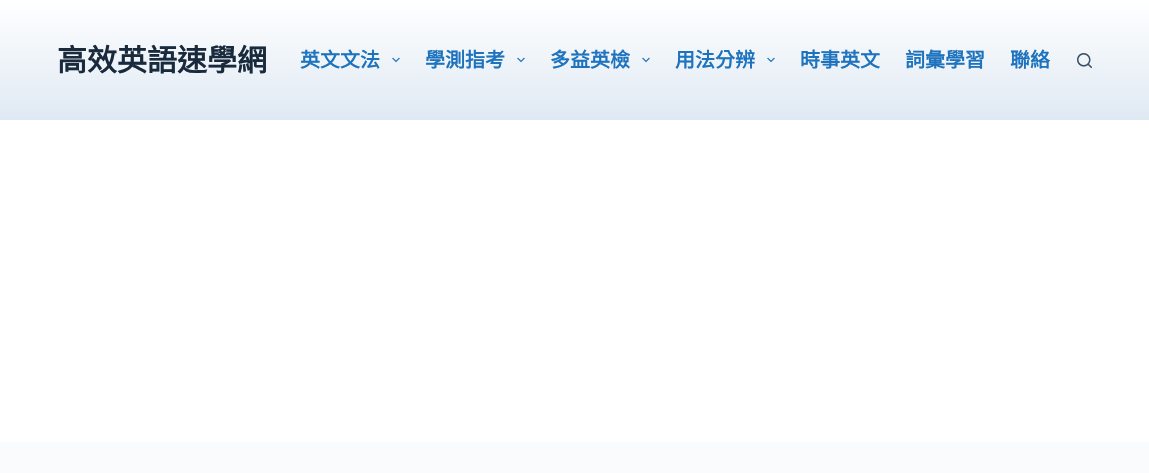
void draw(SkCanvas* canvas) {
	SkPaint paint;
	paint.setAntiAlias(true);
	canvas->clear(0xfffafbfc);
	{
		const SkColor colors[] = {0xffdfe9f3, 0xffffffff};
		const float stops[] = {0, 1};
		const SkPoint ends[] = {{575, 120}, {575, 0}};
		paint.setShader(SkGradientShader::MakeLinear(ends, colors, stops, 2, SkTileMode::kClamp));
		paint.setAlpha(255);
	}
	canvas->drawRect(SkRect::MakeXYWH(0, 0, 1149, 120), paint);
	SkFont f1(fontMgr->matchFamilyStyle("Noto Sans CJK TC", SkFontStyle::Bold()), 30);
	f1.setSubpixel(true);
	paint.setShader(nullptr);
	paint.setColor(0xff192a3d);
	canvas->drawString("高效英語速學網", 57, 71, f1, paint);
	SkFont f2(fontMgr->matchFamilyStyle("Noto Sans CJK TC", SkFontStyle::Bold()), 20);
	f2.setSubpixel(true);
	paint.setColor(0xff1e73be);
	canvas->drawString("英文文法", 300, 67, f2, paint);
	canvas->drawImageRect(SkImages::DeferredFromEncodedData(SkData::MakeFromFileName("img1.png")), SkRect::MakeXYWH(392, 57, 8, 6), SkSamplingOptions());
	canvas->drawString("學測指考", 425, 67, f2, paint);
	canvas->drawImageRect(SkImages::DeferredFromEncodedData(SkData::MakeFromFileName("img1.png")), SkRect::MakeXYWH(517, 57, 8, 6), SkSamplingOptions());
	canvas->drawString("多益英檢", 550, 67, f2, paint);
	canvas->drawImageRect(SkImages::DeferredFromEncodedData(SkData::MakeFromFileName("img1.png")), SkRect::MakeXYWH(642, 57, 8, 6), SkSamplingOptions());
	canvas->drawString("用法分辨", 675, 67, f2, paint);
	canvas->drawImageRect(SkImages::DeferredFromEncodedData(SkData::MakeFromFileName("img1.png")), SkRect::MakeXYWH(767, 57, 8, 6), SkSamplingOptions());
	canvas->drawString("時事英文", 800, 67, f2, paint);
	canvas->drawString("詞彙學習", 905, 67, f2, paint);
	canvas->drawString("聯絡", 1010, 67, f2, paint);
	canvas->drawImageRect(SkImages::DeferredFromEncodedData(SkData::MakeFromFileName("img2.png")), SkRect::MakeXYWH(1077, 53, 15, 15), SkSamplingOptions());
	paint.setColor(0xffffffff);
	canvas->drawRect(SkRect::MakeXYWH(0, 120, 1149, 322), paint);
}
